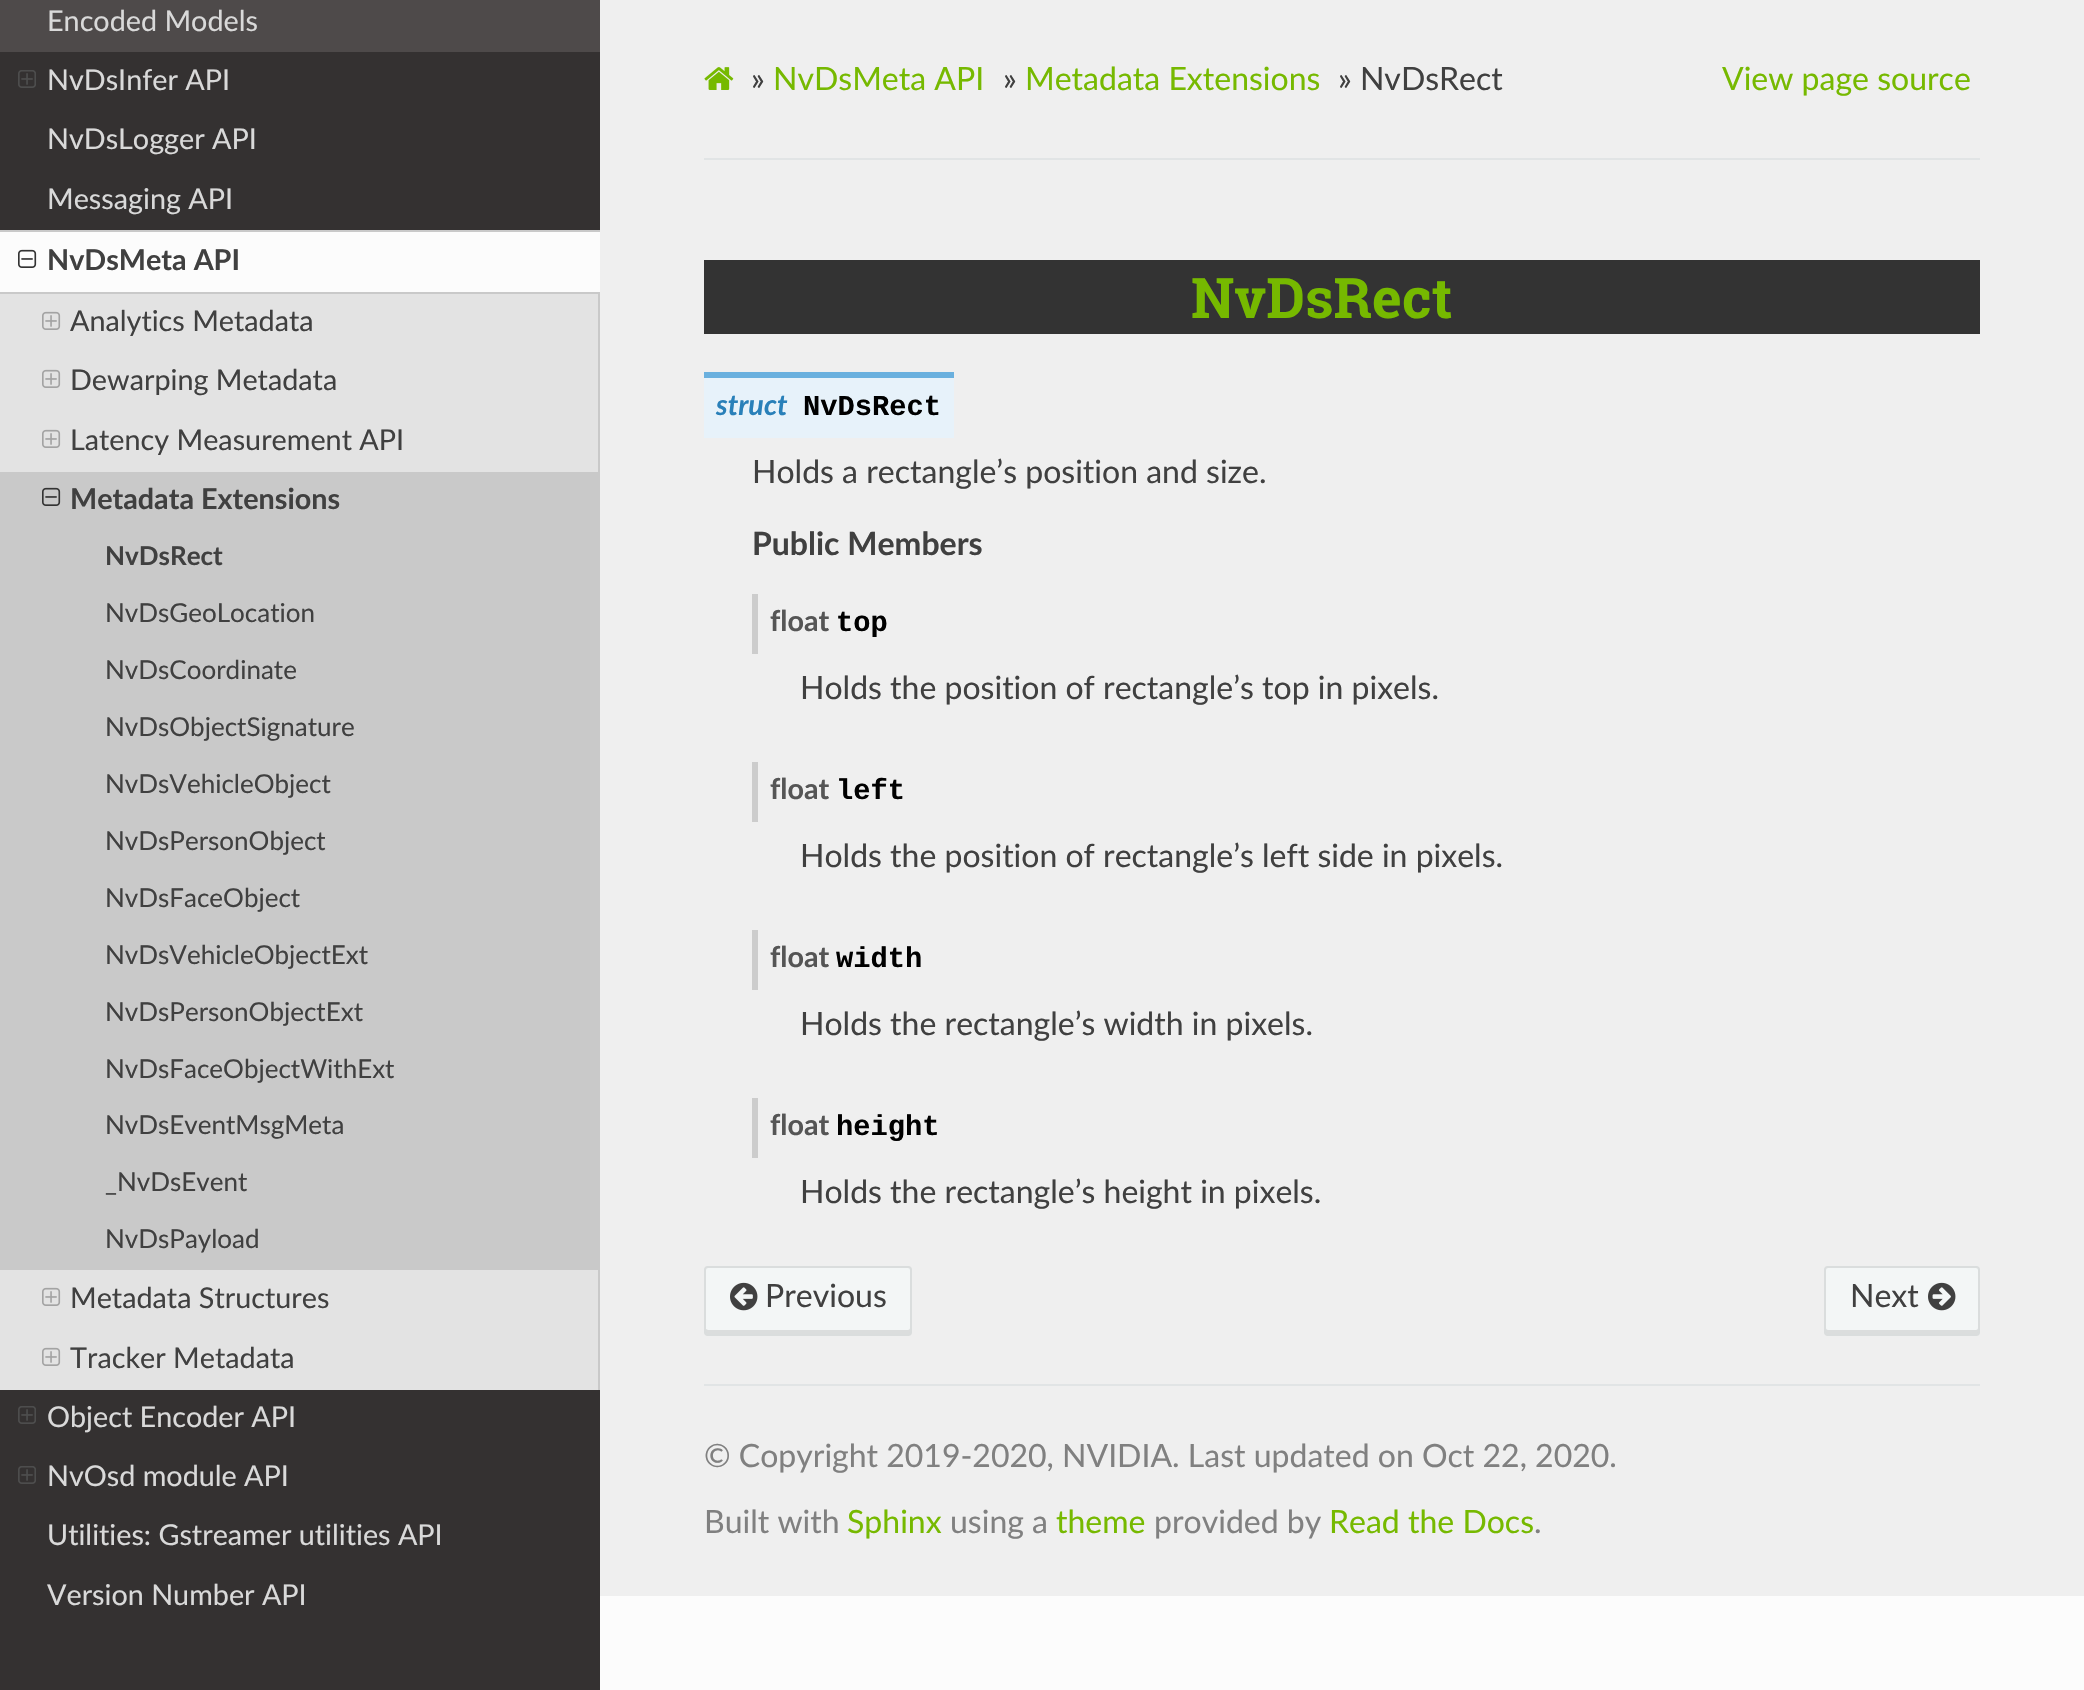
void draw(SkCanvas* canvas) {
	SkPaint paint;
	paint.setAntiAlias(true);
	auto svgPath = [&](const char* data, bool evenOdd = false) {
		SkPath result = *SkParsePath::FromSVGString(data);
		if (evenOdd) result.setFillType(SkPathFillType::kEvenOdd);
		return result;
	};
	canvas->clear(0xfffcfcfc);
	paint.setColor(0xff343131);
	canvas->drawRect(SkRect::MakeXYWH(0, 52, 600, 1638), paint);
	paint.setColor(0xff4e4a4a);
	canvas->drawRect(SkRect::MakeXYWH(0, 0, 600, 52), paint);
	SkFont f1(fontMgr->matchFamilyStyle("Lato", SkFontStyle::Normal()), 28.75);
	f1.setSubpixel(true);
	paint.setColor(0xffd9d9d9);
	canvas->drawString("Encoded Models", 47, 31, f1, paint);
	canvas->drawImageRect(SkImages::DeferredFromEncodedData(SkData::MakeFromFileName("img1.png")), SkRect::MakeXYWH(18, 70, 18, 18), SkSamplingOptions());
	canvas->drawString("NvDsInfer API", 47, 90, f1, paint);
	canvas->drawString("NvDsLogger API", 47, 149, f1, paint);
	canvas->drawString("Messaging API", 47, 209, f1, paint);
	paint.setColor(0xffe3e3e3);
	canvas->drawRect(SkRect::MakeXYWH(0, 294, 598, 1096), paint);
	paint.setColor(0xfffcfcfc);
	canvas->drawRect(SkRect::MakeXYWH(0, 232, 600, 60), paint);
	paint.setColor(0xffc9c9c9);
	canvas->drawRect(SkRect::MakeXYWH(0, 230, 600, 2), paint);
	canvas->drawRect(SkRect::MakeXYWH(0, 292, 600, 2), paint);
	canvas->drawImageRect(SkImages::DeferredFromEncodedData(SkData::MakeFromFileName("img2.png")), SkRect::MakeXYWH(18, 249, 19, 19), SkSamplingOptions());
	SkFont f2(fontMgr->matchFamilyStyle("Lato", SkFontStyle::Bold()), 28.75);
	f2.setSubpixel(true);
	paint.setColor(0xff404040);
	canvas->drawString("NvDsMeta API", 47, 270, f2, paint);
	paint.setColor(0xffc9c9c9);
	canvas->drawRect(SkRect::MakeXYWH(598, 294, 2, 178), paint);
	canvas->drawImageRect(SkImages::DeferredFromEncodedData(SkData::MakeFromFileName("img3.png")), SkRect::MakeXYWH(42, 311, 19, 19), SkSamplingOptions());
	paint.setColor(0xff404040);
	canvas->drawString("Analytics Metadata", 70, 331, f1, paint);
	canvas->drawImageRect(SkImages::DeferredFromEncodedData(SkData::MakeFromFileName("img3.png")), SkRect::MakeXYWH(42, 369, 19, 19), SkSamplingOptions());
	canvas->drawString("Dewarping Metadata", 70, 390, f1, paint);
	canvas->drawImageRect(SkImages::DeferredFromEncodedData(SkData::MakeFromFileName("img3.png")), SkRect::MakeXYWH(42, 429, 19, 19), SkSamplingOptions());
	canvas->drawString("Latency Measurement API", 70, 450, f1, paint);
	paint.setColor(0xffc9c9c9);
	canvas->drawRect(SkRect::MakeXYWH(0, 472, 600, 798), paint);
	canvas->drawImageRect(SkImages::DeferredFromEncodedData(SkData::MakeFromFileName("img4.png")), SkRect::MakeXYWH(42, 487, 19, 19), SkSamplingOptions());
	paint.setColor(0xff404040);
	canvas->drawString("Metadata Extensions", 70, 509, f2, paint);
	SkFont f3(fontMgr->matchFamilyStyle("Lato", SkFontStyle::Bold()), 26);
	f3.setSubpixel(true);
	canvas->drawString("NvDsRect", 105, 565, f3, paint);
	SkFont f4(fontMgr->matchFamilyStyle("Lato", SkFontStyle::Normal()), 26);
	f4.setSubpixel(true);
	canvas->drawString("NvDsGeoLocation", 105, 622, f4, paint);
	canvas->drawString("NvDsCoordinate", 105, 679, f4, paint);
	canvas->drawString("NvDsObjectSignature", 105, 736, f4, paint);
	canvas->drawString("NvDsVehicleObject", 105, 793, f4, paint);
	canvas->drawString("NvDsPersonObject", 105, 850, f4, paint);
	canvas->drawString("NvDsFaceObject", 105, 907, f4, paint);
	canvas->drawString("NvDsVehicleObjectExt", 105, 964, f4, paint);
	canvas->drawString("NvDsPersonObjectExt", 105, 1021, f4, paint);
	canvas->drawString("NvDsFaceObjectWithExt", 105, 1078, f4, paint);
	canvas->drawString("NvDsEventMsgMeta", 105, 1134, f4, paint);
	canvas->drawString("_NvDsEvent", 105, 1191, f4, paint);
	canvas->drawString("NvDsPayload", 105, 1248, f4, paint);
	paint.setColor(0xffc9c9c9);
	canvas->drawRect(SkRect::MakeXYWH(598, 1270, 2, 120), paint);
	canvas->drawImageRect(SkImages::DeferredFromEncodedData(SkData::MakeFromFileName("img3.png")), SkRect::MakeXYWH(42, 1287, 19, 19), SkSamplingOptions());
	paint.setColor(0xff404040);
	canvas->drawString("Metadata Structures", 70, 1308, f1, paint);
	canvas->drawImageRect(SkImages::DeferredFromEncodedData(SkData::MakeFromFileName("img3.png")), SkRect::MakeXYWH(42, 1347, 19, 19), SkSamplingOptions());
	canvas->drawString("Tracker Metadata", 70, 1368, f1, paint);
	canvas->drawImageRect(SkImages::DeferredFromEncodedData(SkData::MakeFromFileName("img1.png")), SkRect::MakeXYWH(18, 1406, 18, 18), SkSamplingOptions());
	paint.setColor(0xffd9d9d9);
	canvas->drawString("Object Encoder API", 47, 1427, f1, paint);
	canvas->drawImageRect(SkImages::DeferredFromEncodedData(SkData::MakeFromFileName("img1.png")), SkRect::MakeXYWH(18, 1466, 18, 18), SkSamplingOptions());
	canvas->drawString("NvOsd module API", 47, 1486, f1, paint);
	canvas->drawString("Utilities: Gstreamer utilities API", 47, 1545, f1, paint);
	canvas->drawString("Version Number API", 47, 1605, f1, paint);
	paint.setColor(0xffefefef);
	canvas->drawRect(SkRect::MakeXYWH(600, 0, 1484, 1596), paint);
	canvas->drawImageRect(SkImages::DeferredFromEncodedData(SkData::MakeFromFileName("img5.png")), SkRect::MakeXYWH(704, 67, 30, 23), SkSamplingOptions());
	SkFont f5(fontMgr->matchFamilyStyle("Lato", SkFontStyle::Normal()), 32);
	f5.setSubpixel(true);
	paint.setColor(0xff404040);
	canvas->drawString("»", 751, 90, f5, paint);
	paint.setColor(0xff76b900);
	canvas->drawString("NvDsMeta API", 773, 90, f5, paint);
	paint.setColor(0xff404040);
	canvas->drawString("»", 1003, 90, f5, paint);
	paint.setColor(0xff76b900);
	canvas->drawString("Metadata Extensions", 1025, 90, f5, paint);
	paint.setColor(0xff404040);
	canvas->drawString("» NvDsRect", 1338, 90, f5, paint);
	paint.setColor(0xff76b900);
	canvas->drawString("View page source", 1722, 90, f5, paint);
	paint.setColor(0xffe1e4e5);
	canvas->drawRect(SkRect::MakeXYWH(704, 158, 1276, 2), paint);
	paint.setColor(0xff333333);
	canvas->drawRect(SkRect::MakeXYWH(704, 260, 1276, 74), paint);
	SkFont f6(fontMgr->matchFamilyStyle("Roboto Slab", SkFontStyle::Bold()), 56);
	f6.setSubpixel(true);
	paint.setColor(0xff76b900);
	canvas->drawString("NvDsRect", 1191, 318, f6, paint);
	paint.setColor(0xffe7f2fa);
	canvas->drawRect(SkRect::MakeXYWH(704, 378, 250, 60), paint);
	paint.setColor(0xff6ab0de);
	canvas->drawRect(SkRect::MakeXYWH(704, 372, 250, 6), paint);
	SkFont f7(fontMgr->matchFamilyStyle("Lato", SkFontStyle::BoldItalic()), 28.75);
	f7.setSubpixel(true);
	paint.setColor(0xff2980b9);
	canvas->drawString("struct", 716, 415, f7, paint);
	SkFont f8(fontMgr->matchFamilyStyle("Liberation Mono", SkFontStyle::Bold()), 28.75);
	f8.setSubpixel(true);
	paint.setColor(0xff000000);
	canvas->drawString("NvDsRect", 803, 415, f8, paint);
	paint.setColor(0xff404040);
	canvas->drawString("Holds a rectangle’s position and size.", 752, 483, f5, paint);
	SkFont f9(fontMgr->matchFamilyStyle("Lato", SkFontStyle::Bold()), 32);
	f9.setSubpixel(true);
	canvas->drawString("Public Members", 752, 555, f9, paint);
	paint.setColor(0xffcccccc);
	canvas->drawRect(SkRect::MakeXYWH(752, 594, 6, 60), paint);
	paint.setColor(0xff555555);
	canvas->drawString("float", 770, 631, f2, paint);
	paint.setColor(0xff000000);
	canvas->drawString("top", 836, 631, f8, paint);
	paint.setColor(0xff404040);
	canvas->drawString("Holds the position of rectangle’s top in pixels.", 800, 699, f5, paint);
	paint.setColor(0xffcccccc);
	canvas->drawRect(SkRect::MakeXYWH(752, 762, 6, 60), paint);
	paint.setColor(0xff555555);
	canvas->drawString("float", 770, 799, f2, paint);
	paint.setColor(0xff000000);
	canvas->drawString("left", 836, 799, f8, paint);
	paint.setColor(0xff404040);
	canvas->drawString("Holds the position of rectangle’s left side in pixels.", 800, 867, f5, paint);
	paint.setColor(0xffcccccc);
	canvas->drawRect(SkRect::MakeXYWH(752, 930, 6, 60), paint);
	paint.setColor(0xff555555);
	canvas->drawString("float", 770, 967, f2, paint);
	paint.setColor(0xff000000);
	canvas->drawString("width", 836, 967, f8, paint);
	paint.setColor(0xff404040);
	canvas->drawString("Holds the rectangle’s width in pixels.", 800, 1035, f5, paint);
	paint.setColor(0xffcccccc);
	canvas->drawRect(SkRect::MakeXYWH(752, 1098, 6, 60), paint);
	paint.setColor(0xff555555);
	canvas->drawString("float", 770, 1135, f2, paint);
	paint.setColor(0xff000000);
	canvas->drawString("height", 836, 1135, f8, paint);
	paint.setColor(0xff404040);
	canvas->drawString("Holds the rectangle’s height in pixels.", 800, 1203, f5, paint);
	paint.setColor(0xfff3f6f6);
	canvas->drawRoundRect(SkRect::MakeXYWH(704, 1266, 208, 70), 4, 4, paint);
	paint.setColor(0xffdbdddd);
	canvas->drawPath(svgPath("M706 1328V1332C706 1333 707 1334 708 1334H908C909 1334 910 1333 910 1332V1328C910 1329 909 1330 908 1330H708L706 1329Z"), paint);
	paint.setStroke(true);
	paint.setStrokeWidth(2);
	paint.setColor(0x1a000000);
	canvas->drawRoundRect(SkRect::MakeXYWH(705, 1267, 206, 68), 3, 3, paint);
	canvas->drawImageRect(SkImages::DeferredFromEncodedData(SkData::MakeFromFileName("img6.png")), SkRect::MakeXYWH(730, 1282, 28, 29), SkSamplingOptions());
	paint.setStroke(false);
	paint.setColor(0xff404040);
	canvas->drawString("Previous", 765, 1307, f5, paint);
	paint.setColor(0xfff3f6f6);
	canvas->drawRoundRect(SkRect::MakeXYWH(1824, 1266, 156, 70), 4, 4, paint);
	paint.setColor(0xffdbdddd);
	canvas->drawPath(svgPath("M1826 1328V1332C1826 1333 1827 1334 1828 1334H1976C1977 1334 1978 1333 1978 1332V1328C1978 1329 1977 1330 1976 1330H1828C1827 1330 1826 1329 1826 1328Z"), paint);
	paint.setStroke(true);
	paint.setColor(0x1a000000);
	canvas->drawRoundRect(SkRect::MakeXYWH(1825, 1267, 154, 68), 3, 3, paint);
	paint.setStroke(false);
	paint.setColor(0xff404040);
	canvas->drawString("Next", 1850, 1307, f5, paint);
	canvas->drawImageRect(SkImages::DeferredFromEncodedData(SkData::MakeFromFileName("img7.png")), SkRect::MakeXYWH(1928, 1282, 28, 29), SkSamplingOptions());
	paint.setColor(0xffe1e4e5);
	canvas->drawRect(SkRect::MakeXYWH(704, 1384, 1276, 2), paint);
	paint.setColor(0xff808080);
	canvas->drawString("© Copyright 2019-2020, NVIDIA. Last updated on Oct 22, 2020.", 704, 1467, f5, paint);
	canvas->drawString("Built with", 704, 1533, f5, paint);
	paint.setColor(0xff76b900);
	canvas->drawString("Sphinx", 847, 1533, f5, paint);
	paint.setColor(0xff808080);
	canvas->drawString("using a", 950, 1533, f5, paint);
	paint.setColor(0xff76b900);
	canvas->drawString("theme", 1056, 1533, f5, paint);
	paint.setColor(0xff808080);
	canvas->drawString("provided by", 1154, 1533, f5, paint);
	paint.setColor(0xff76b900);
	canvas->drawString("Read the Docs", 1329, 1533, f5, paint);
	paint.setColor(0xff808080);
	canvas->drawString(".", 1534, 1533, f5, paint);
}
